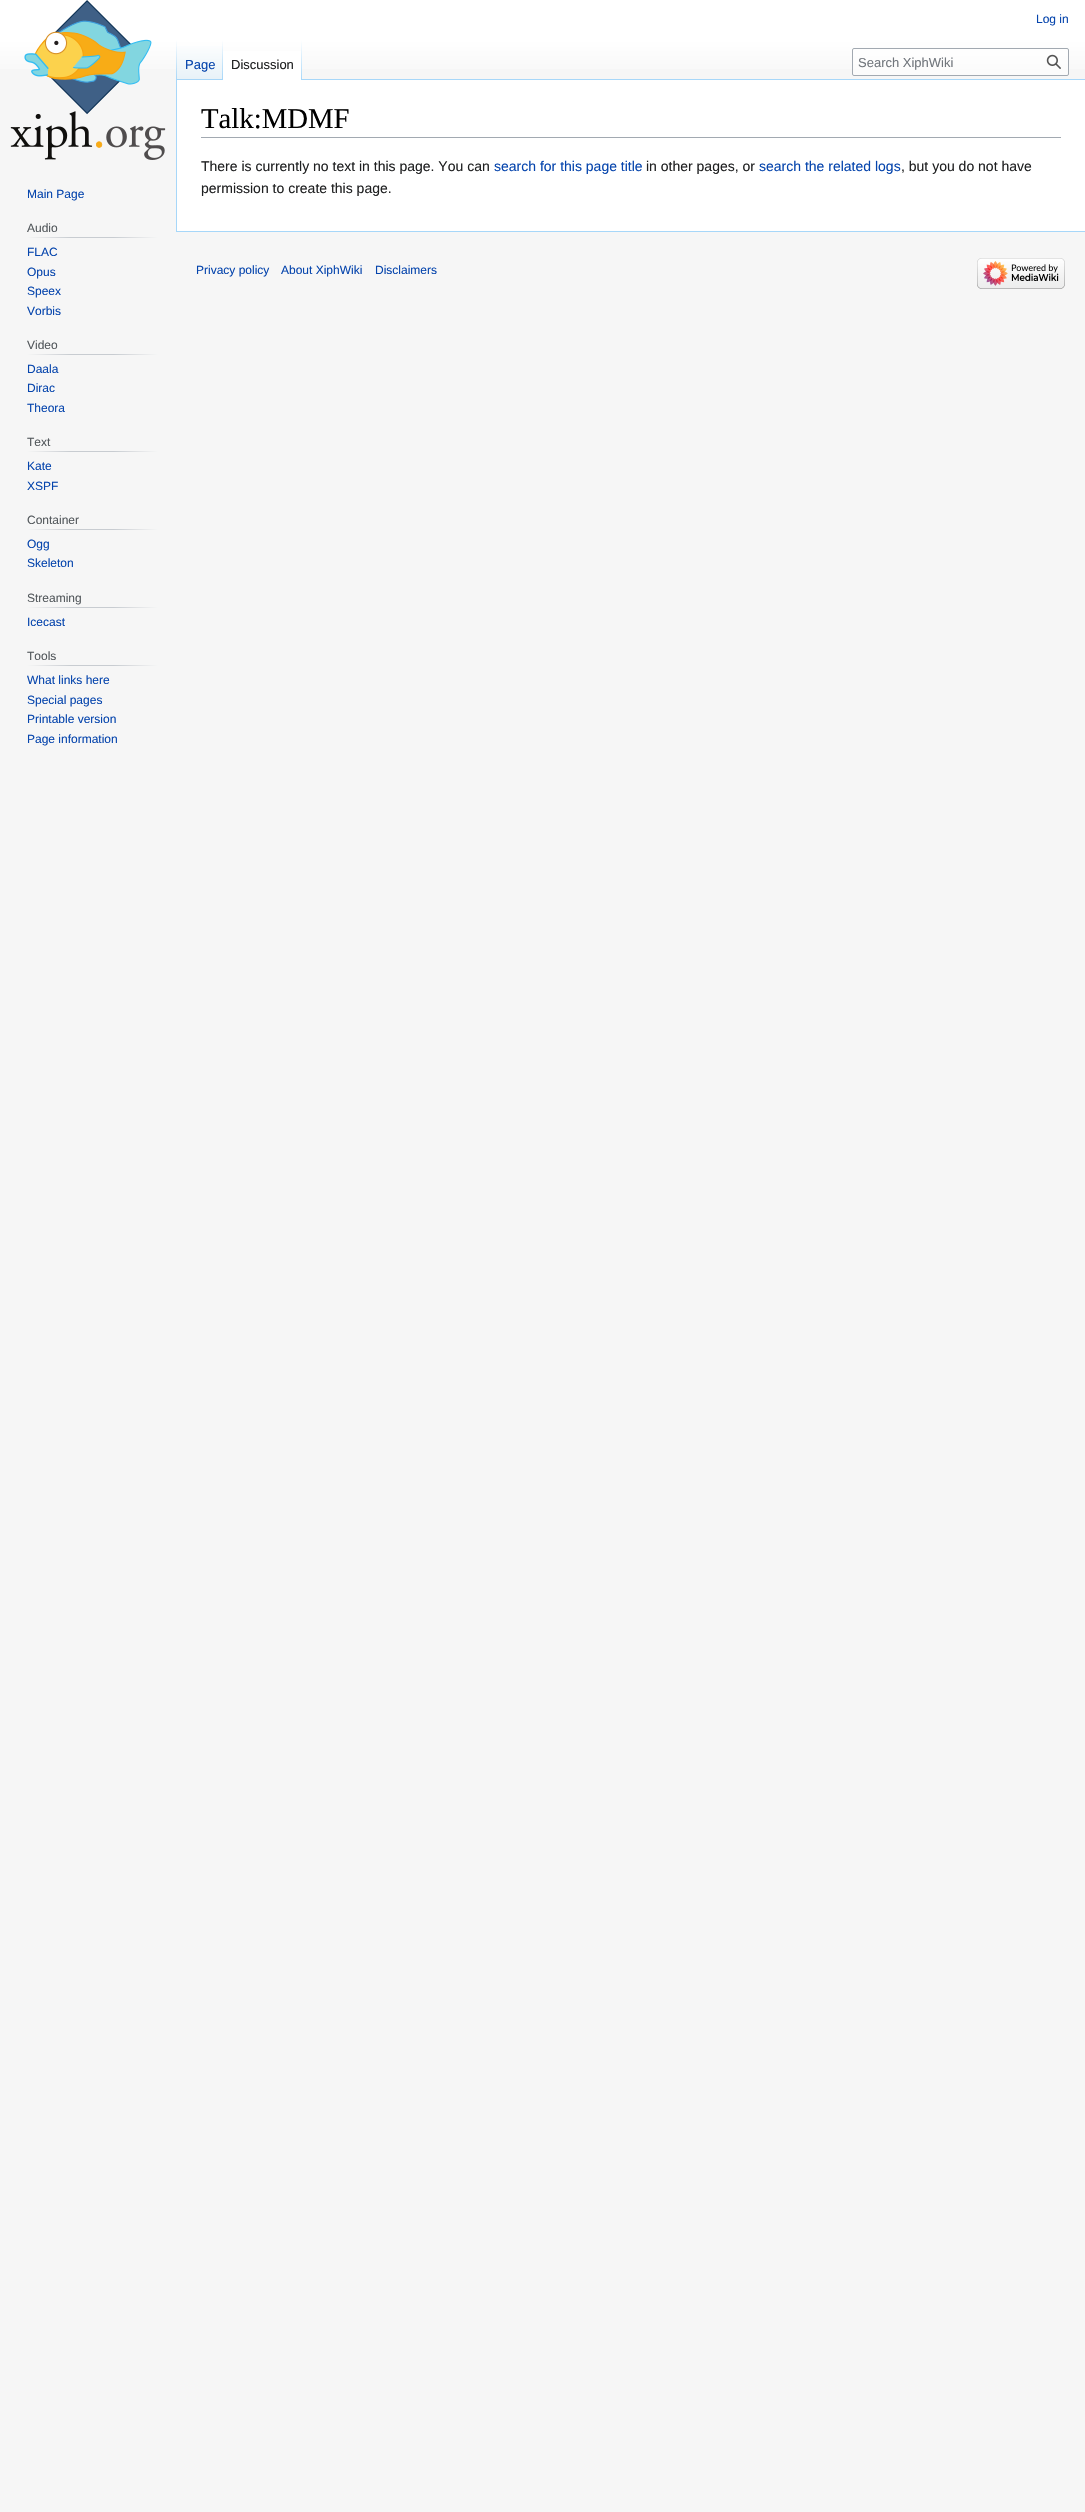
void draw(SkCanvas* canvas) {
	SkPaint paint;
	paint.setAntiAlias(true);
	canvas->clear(0xfff6f6f6);
	{
		const SkColor colors[] = {0xffffffff, 0xfff6f6f6};
		const float stops[] = {0.5, 1};
		const SkPoint ends[] = {{543, 0}, {543, 80}};
		paint.setShader(SkGradientShader::MakeLinear(ends, colors, stops, 2, SkTileMode::kClamp));
		paint.setAlpha(255);
	}
	canvas->drawRect(SkRect::MakeXYWH(0, 0, 1085, 69), paint);
	SkFont f1(fontMgr->matchFamilyStyle("Liberation Sans", SkFontStyle::Normal()), 12);
	f1.setSubpixel(true);
	paint.setShader(nullptr);
	paint.setColor(0xff0645ad);
	canvas->drawString("Log in", 1036, 23, f1, paint);
	paint.setColor(0xffa7d7f9);
	canvas->drawRect(SkRect::MakeXYWH(176, 231, 909, 1), paint);
	canvas->drawRect(SkRect::MakeXYWH(176, 79, 1, 153), paint);
	{
		const SkColor colors[] = {0x00a7d7f9, 0xffa7d7f9};
		const float stops[] = {0, 1};
		const SkPoint ends[] = {{177, 40}, {177, 80}};
		paint.setShader(SkGradientShader::MakeLinear(ends, colors, stops, 2, SkTileMode::kClamp));
		paint.setAlpha(255);
	}
	canvas->drawRect(SkRect::MakeXYWH(176, 40, 1, 40), paint);
	{
		const SkColor colors[] = {0xff77c1f6, 0xffe8f2f8, 0xffffffff};
		const float stops[] = {0, 0.03, 1};
		const SkPoint ends[] = {{200, 80}, {200, 40}};
		paint.setShader(SkGradientShader::MakeLinear(ends, colors, stops, 3, SkTileMode::kClamp));
		paint.setAlpha(255);
	}
	canvas->drawRect(SkRect::MakeXYWH(177, 46, 46, 34), paint);
	{
		const SkColor colors[] = {0x00a7d7f9, 0xffa7d7f9};
		const float stops[] = {0, 1};
		const SkPoint ends[] = {{223, 40}, {223, 80}};
		paint.setShader(SkGradientShader::MakeLinear(ends, colors, stops, 2, SkTileMode::kClamp));
		paint.setAlpha(255);
	}
	canvas->drawRect(SkRect::MakeXYWH(222, 40, 1, 40), paint);
	SkFont f2(fontMgr->matchFamilyStyle("Liberation Sans", SkFontStyle::Normal()), 13);
	f2.setSubpixel(true);
	paint.setShader(nullptr);
	paint.setColor(0xff0645ad);
	canvas->drawString("Page", 185, 69, f2, paint);
	paint.setColor(0xffffffff);
	canvas->drawRect(SkRect::MakeXYWH(223, 51, 78, 29), paint);
	{
		const SkColor colors[] = {0xffffffff, 0xffa7d7f9};
		const float stops[] = {0, 1};
		const SkPoint ends[] = {{302, 40}, {302, 80}};
		paint.setShader(SkGradientShader::MakeLinear(ends, colors, stops, 2, SkTileMode::kClamp));
		paint.setAlpha(255);
	}
	canvas->drawRect(SkRect::MakeXYWH(301, 40, 1, 40), paint);
	paint.setShader(nullptr);
	paint.setColor(0xff202122);
	canvas->drawString("Discussion", 231, 69, f2, paint);
	paint.setColor(0x80ffffff);
	canvas->drawRoundRect(SkRect::MakeXYWH(852.5, 48.5, 216, 27), 1.5, 1.5, paint);
	paint.setStroke(true);
	paint.setStrokeWidth(1);
	paint.setColor(0xffa2a9b1);
	canvas->drawRoundRect(SkRect::MakeXYWH(852.5, 48.5, 216, 27), 1.5, 1.5, paint);
	paint.setStroke(false);
	paint.setColor(0xff72777d);
	canvas->drawString("Search XiphWiki", 858, 67, f2, paint);
	canvas->drawImageRect(SkImages::DeferredFromEncodedData(SkData::MakeFromFileName("img1.png")), SkRect::MakeXYWH(1046, 54, 15, 15), SkSamplingOptions());
	canvas->drawImageRect(SkImages::DeferredFromEncodedData(SkData::MakeFromFileName("img2.png")), SkRect::MakeXYWH(10, 0, 156, 160), SkSamplingOptions());
	paint.setColor(0xff0645ad);
	canvas->drawString("Main Page", 27, 198, f1, paint);
	{
		const SkColor colors[] = {0xfff6f6f6, 0xffc8ccd1, 0xffc8ccd1, 0xfff6f6f6};
		const float stops[] = {0, 0.33, 0.66, 1};
		const SkPoint ends[] = {{27, 238}, {158, 238}};
		paint.setShader(SkGradientShader::MakeLinear(ends, colors, stops, 4, SkTileMode::kClamp));
		paint.setAlpha(255);
	}
	canvas->drawRect(SkRect::MakeXYWH(27, 237, 131, 1), paint);
	paint.setShader(nullptr);
	paint.setColor(0xff54595d);
	canvas->drawString("Audio", 27, 232, f1, paint);
	paint.setColor(0xff0645ad);
	canvas->drawString("FLAC", 27, 256, f1, paint);
	canvas->drawString("Opus", 27, 276, f1, paint);
	canvas->drawString("Speex", 27, 295, f1, paint);
	canvas->drawString("Vorbis", 27, 315, f1, paint);
	{
		const SkColor colors[] = {0xfff6f6f6, 0xffc8ccd1, 0xffc8ccd1, 0xfff6f6f6};
		const float stops[] = {0, 0.33, 0.66, 1};
		const SkPoint ends[] = {{27, 355}, {158, 355}};
		paint.setShader(SkGradientShader::MakeLinear(ends, colors, stops, 4, SkTileMode::kClamp));
		paint.setAlpha(255);
	}
	canvas->drawRect(SkRect::MakeXYWH(27, 354, 131, 1), paint);
	paint.setShader(nullptr);
	paint.setColor(0xff54595d);
	canvas->drawString("Video", 27, 349, f1, paint);
	paint.setColor(0xff0645ad);
	canvas->drawString("Daala", 27, 373, f1, paint);
	canvas->drawString("Dirac", 27, 392, f1, paint);
	canvas->drawString("Theora", 27, 412, f1, paint);
	{
		const SkColor colors[] = {0xfff6f6f6, 0xffc8ccd1, 0xffc8ccd1, 0xfff6f6f6};
		const float stops[] = {0, 0.33, 0.66, 1};
		const SkPoint ends[] = {{27, 452}, {158, 452}};
		paint.setShader(SkGradientShader::MakeLinear(ends, colors, stops, 4, SkTileMode::kClamp));
		paint.setAlpha(255);
	}
	canvas->drawRect(SkRect::MakeXYWH(27, 451, 131, 1), paint);
	paint.setShader(nullptr);
	paint.setColor(0xff54595d);
	canvas->drawString("Text", 27, 446, f1, paint);
	paint.setColor(0xff0645ad);
	canvas->drawString("Kate", 27, 470, f1, paint);
	canvas->drawString("XSPF", 27, 490, f1, paint);
	{
		const SkColor colors[] = {0xfff6f6f6, 0xffc8ccd1, 0xffc8ccd1, 0xfff6f6f6};
		const float stops[] = {0, 0.33, 0.66, 1};
		const SkPoint ends[] = {{27, 530}, {158, 530}};
		paint.setShader(SkGradientShader::MakeLinear(ends, colors, stops, 4, SkTileMode::kClamp));
		paint.setAlpha(255);
	}
	canvas->drawRect(SkRect::MakeXYWH(27, 529, 131, 1), paint);
	paint.setShader(nullptr);
	paint.setColor(0xff54595d);
	canvas->drawString("Container", 27, 524, f1, paint);
	paint.setColor(0xff0645ad);
	canvas->drawString("Ogg", 27, 548, f1, paint);
	canvas->drawString("Skeleton", 27, 567, f1, paint);
	{
		const SkColor colors[] = {0xfff6f6f6, 0xffc8ccd1, 0xffc8ccd1, 0xfff6f6f6};
		const float stops[] = {0, 0.33, 0.66, 1};
		const SkPoint ends[] = {{27, 608}, {158, 608}};
		paint.setShader(SkGradientShader::MakeLinear(ends, colors, stops, 4, SkTileMode::kClamp));
		paint.setAlpha(255);
	}
	canvas->drawRect(SkRect::MakeXYWH(27, 607, 131, 1), paint);
	paint.setShader(nullptr);
	paint.setColor(0xff54595d);
	canvas->drawString("Streaming", 27, 602, f1, paint);
	paint.setColor(0xff0645ad);
	canvas->drawString("Icecast", 27, 626, f1, paint);
	{
		const SkColor colors[] = {0xfff6f6f6, 0xffc8ccd1, 0xffc8ccd1, 0xfff6f6f6};
		const float stops[] = {0, 0.33, 0.66, 1};
		const SkPoint ends[] = {{27, 666}, {158, 666}};
		paint.setShader(SkGradientShader::MakeLinear(ends, colors, stops, 4, SkTileMode::kClamp));
		paint.setAlpha(255);
	}
	canvas->drawRect(SkRect::MakeXYWH(27, 665, 131, 1), paint);
	paint.setShader(nullptr);
	paint.setColor(0xff54595d);
	canvas->drawString("Tools", 27, 660, f1, paint);
	paint.setColor(0xff0645ad);
	canvas->drawString("What links here", 27, 684, f1, paint);
	canvas->drawString("Special pages", 27, 704, f1, paint);
	canvas->drawString("Printable version", 27, 723, f1, paint);
	canvas->drawString("Page information", 27, 743, f1, paint);
	paint.setColor(0xffffffff);
	canvas->drawRect(SkRect::MakeXYWH(177, 80, 908, 151), paint);
	paint.setColor(0xffa7d7f9);
	canvas->drawRect(SkRect::MakeXYWH(302, 79, 783, 1), paint);
	paint.setColor(0xffa2a9b1);
	canvas->drawRect(SkRect::MakeXYWH(201, 137, 860, 1), paint);
	SkFont f3(fontMgr->matchFamilyStyle("Liberation Serif", SkFontStyle::Normal()), 28.75);
	f3.setSubpixel(true);
	paint.setColor(0xff000000);
	canvas->drawString("Talk:MDMF", 201, 128, f3, paint);
	SkFont f4(fontMgr->matchFamilyStyle("Liberation Sans", SkFontStyle::Normal()), 14);
	f4.setSubpixel(true);
	paint.setColor(0xff202122);
	canvas->drawString("There is currently no text in this page. You can", 201, 171, f4, paint);
	paint.setColor(0xff0645ad);
	canvas->drawString("search for this page title", 494, 171, f4, paint);
	paint.setColor(0xff202122);
	canvas->drawString("in other pages, or", 646, 171, f4, paint);
	paint.setColor(0xff0645ad);
	canvas->drawString("search the related logs", 759, 171, f4, paint);
	paint.setColor(0xff202122);
	canvas->drawString(", but you do not have", 901, 171, f4, paint);
	canvas->drawString("permission to create this page.", 201, 193, f4, paint);
	paint.setColor(0xff0645ad);
	canvas->drawString("Privacy policy", 196, 274, f1, paint);
	canvas->drawString("About XiphWiki", 281, 274, f1, paint);
	canvas->drawString("Disclaimers", 375, 274, f1, paint);
	canvas->drawImageRect(SkImages::DeferredFromEncodedData(SkData::MakeFromFileName("img3.png")), SkRect::MakeXYWH(977, 258, 88, 31), SkSamplingOptions());
}
